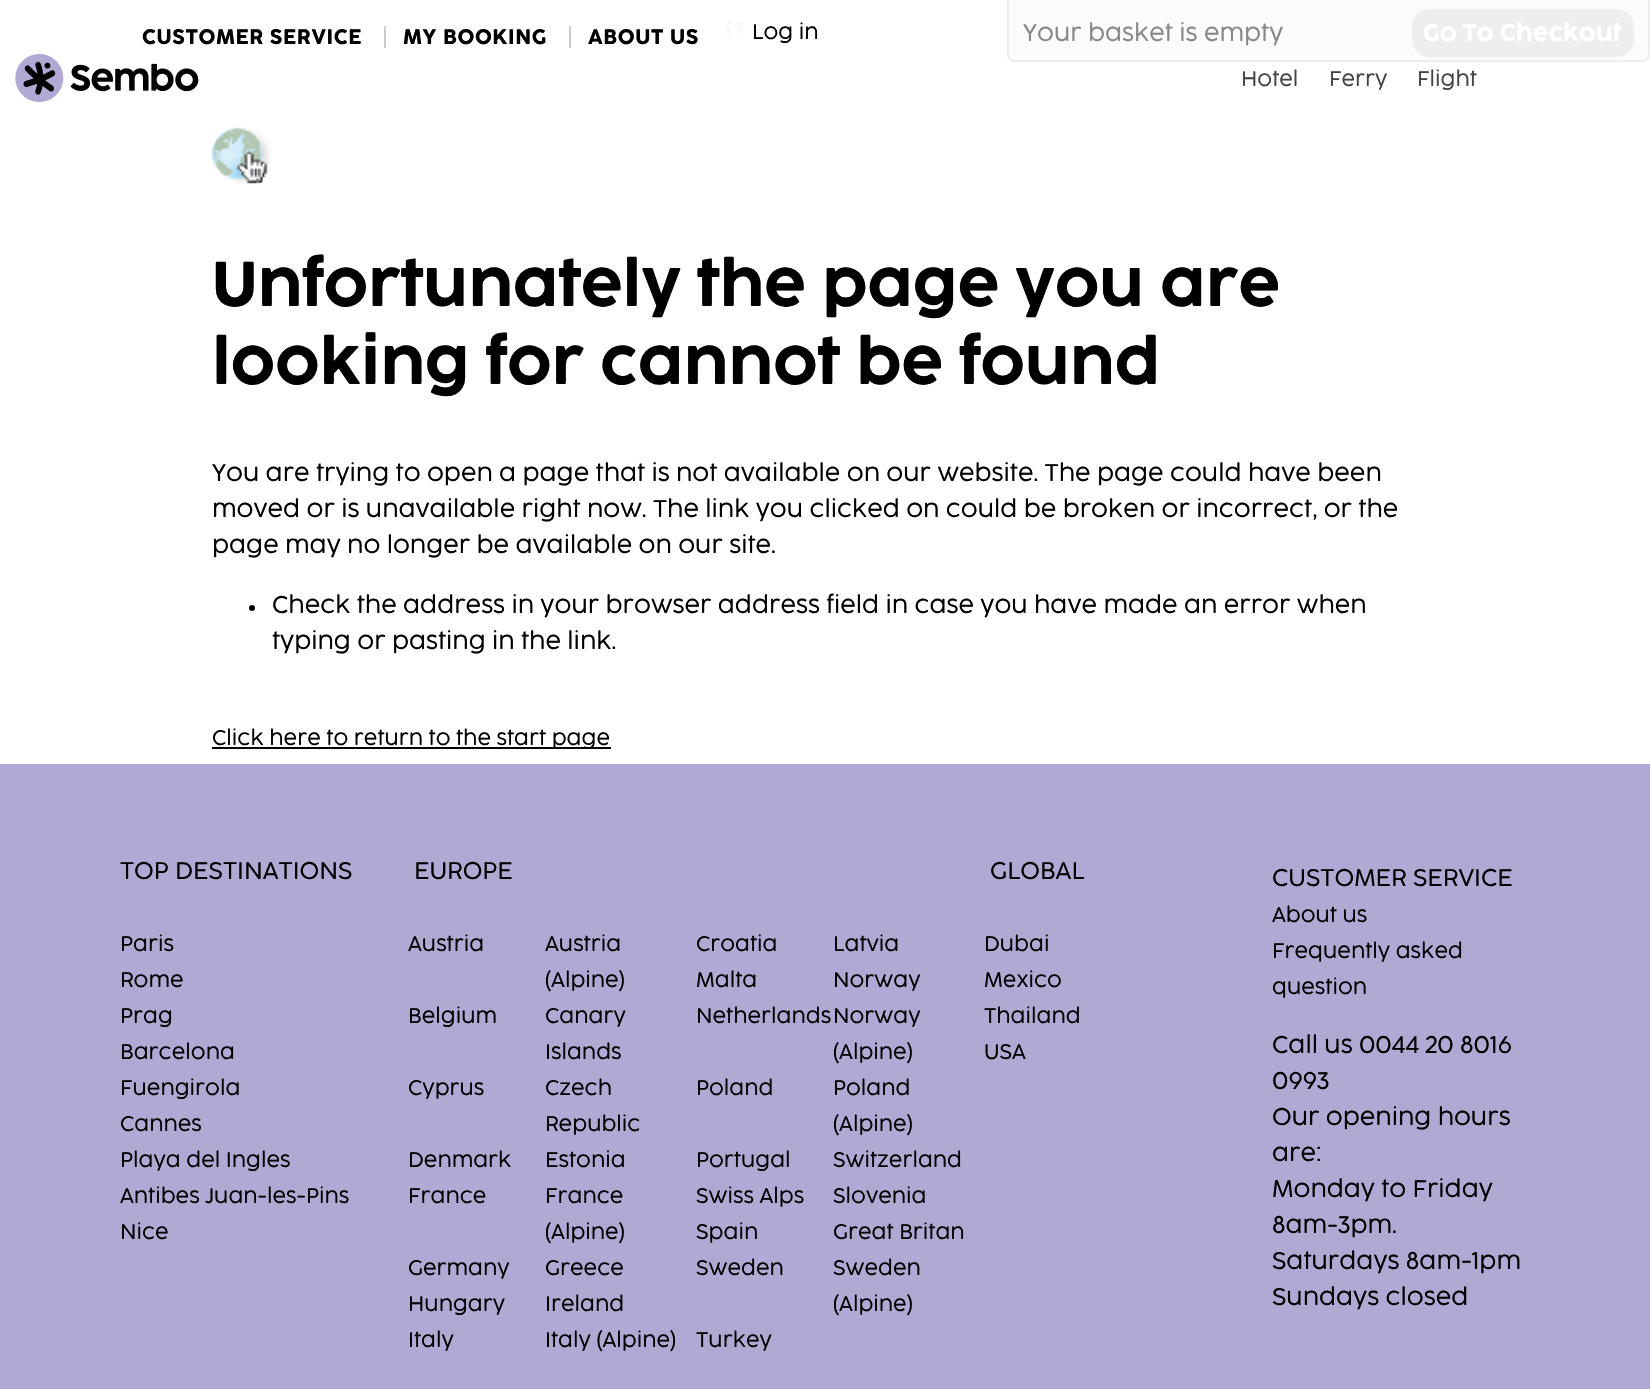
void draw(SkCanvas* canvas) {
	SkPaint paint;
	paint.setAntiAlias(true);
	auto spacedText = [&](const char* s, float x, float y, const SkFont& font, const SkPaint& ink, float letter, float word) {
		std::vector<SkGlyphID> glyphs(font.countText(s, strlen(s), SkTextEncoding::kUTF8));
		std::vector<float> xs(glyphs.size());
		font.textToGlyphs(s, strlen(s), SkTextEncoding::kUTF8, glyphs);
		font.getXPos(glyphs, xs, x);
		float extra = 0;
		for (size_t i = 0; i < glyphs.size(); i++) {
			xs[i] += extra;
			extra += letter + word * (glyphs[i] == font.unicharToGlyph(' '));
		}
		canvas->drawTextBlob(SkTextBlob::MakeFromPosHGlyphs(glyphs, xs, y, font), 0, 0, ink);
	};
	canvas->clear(0xffffffff);
	canvas->drawImageRect(SkImages::DeferredFromEncodedData(SkData::MakeFromFileName("img1.png")), SkRect::MakeXYWH(15, 54, 184, 48), SkSamplingOptions());
	SkFont f1(fontMgr->matchFamilyStyle("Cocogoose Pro", SkFontStyle::Normal()), 21);
	f1.setSubpixel(true);
	paint.setColor(0xff000000);
	spacedText("CUSTOMER SERVICE", 142, 44, f1, paint, 0.6, 0);
	spacedText("MY BOOKING", 403, 44, f1, paint, 0.6, 0);
	paint.setColor(0xffcccccc);
	canvas->drawRect(SkRect::MakeXYWH(384, 26, 2, 22), paint);
	paint.setColor(0xff000000);
	spacedText("ABOUT US", 588, 44, f1, paint, 0.6, 0);
	paint.setColor(0xffcccccc);
	canvas->drawRect(SkRect::MakeXYWH(569, 26, 2, 22), paint);
	canvas->drawImageRect(SkImages::DeferredFromEncodedData(SkData::MakeFromFileName("img2.png")), SkRect::MakeXYWH(726, 21, 15, 15), SkSamplingOptions());
	SkFont f2(fontMgr->matchFamilyStyle("Cocogoose Pro", SkFontStyle(300, SkFontStyle::kNormal_Width, SkFontStyle::kUpright_Slant)), 21);
	f2.setSubpixel(true);
	paint.setColor(0xff000000);
	canvas->drawString("Log in", 752, 39, f2, paint);
	paint.setColor(0xfffbfbfb);
	canvas->drawRoundRect(SkRect::MakeXYWH(1008, -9, 641, 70), 7, 7, paint);
	paint.setStroke(true);
	paint.setStrokeWidth(2);
	paint.setColor(0xffededed);
	canvas->drawRoundRect(SkRect::MakeXYWH(1008, -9, 641, 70), 7, 7, paint);
	SkFont f3(fontMgr->matchFamilyStyle("Cocogoose Pro", SkFontStyle(300, SkFontStyle::kNormal_Width, SkFontStyle::kUpright_Slant)), 24);
	f3.setSubpixel(true);
	paint.setStroke(false);
	paint.setColor(0xff888888);
	canvas->drawString("Your basket is empty", 1023, 41, f3, paint);
	paint.setColor(0xffeeeeee);
	canvas->drawRoundRect(SkRect::MakeXYWH(1412, 9, 222, 48), 18, 18, paint);
	SkFont f4(fontMgr->matchFamilyStyle("Cocogoose Pro", SkFontStyle::Normal()), 24);
	f4.setSubpixel(true);
	paint.setColor(0xffffffff);
	canvas->drawString("Go To Checkout", 1423, 41, f4, paint);
	paint.setColor(0xff444444);
	canvas->drawString("Hotel", 1241, 86, f2, paint);
	canvas->drawString("Ferry", 1329, 86, f2, paint);
	canvas->drawString("Flight", 1417, 86, f2, paint);
	canvas->drawImageRect(SkImages::DeferredFromEncodedData(SkData::MakeFromFileName("img3.png")), SkRect::MakeXYWH(211, 127, 60, 57), SkSamplingOptions());
	SkFont f5(fontMgr->matchFamilyStyle("Cocogoose Pro", SkFontStyle::Normal()), 63);
	f5.setSubpixel(true);
	paint.setColor(0xff000000);
	canvas->drawString("Unfortunately the page you are", 212, 306, f5, paint);
	canvas->drawString("looking for cannot be found", 212, 384, f5, paint);
	canvas->drawString("You are trying to open a page that is not available on our website. The page could have been", 212, 481, f3, paint);
	canvas->drawString("moved or is unavailable right now. The link you clicked on could be broken or incorrect, or the", 212, 517, f3, paint);
	canvas->drawString("page may no longer be available on our site.", 212, 553, f3, paint);
	canvas->drawCircle(252, 608, 3, paint);
	canvas->drawString("Check the address in your browser address field in case you have made an error when", 272, 613, f3, paint);
	canvas->drawString("typing or pasting in the link.", 272, 649, f3, paint);
	canvas->drawRect(SkRect::MakeXYWH(212, 747, 399, 2), paint);
	canvas->drawString("Click here to return to the start page", 212, 745, f2, paint);
	paint.setColor(0xffb1a8d3);
	canvas->drawRect(SkRect::MakeXYWH(0, 764, 1650, 625), paint);
	paint.setColor(0xff000000);
	canvas->drawString("TOP DESTINATIONS", 120, 879, f3, paint);
	canvas->drawString("Paris", 120, 951, f2, paint);
	canvas->drawString("Rome", 120, 987, f2, paint);
	canvas->drawString("Prag", 120, 1023, f2, paint);
	canvas->drawString("Barcelona", 120, 1059, f2, paint);
	canvas->drawString("Fuengirola", 120, 1095, f2, paint);
	canvas->drawString("Cannes", 120, 1131, f2, paint);
	canvas->drawString("Playa del Ingles", 120, 1167, f2, paint);
	canvas->drawString("Antibes Juan-les-Pins", 120, 1203, f2, paint);
	canvas->drawString("Nice", 120, 1239, f2, paint);
	canvas->drawString("EUROPE", 414, 879, f3, paint);
	canvas->drawString("Austria", 408, 951, f2, paint);
	canvas->drawString("Austria", 545, 951, f2, paint);
	canvas->drawString("(Alpine)", 545, 987, f2, paint);
	canvas->drawString("Belgium", 408, 1023, f2, paint);
	canvas->drawString("Canary", 545, 1023, f2, paint);
	canvas->drawString("Islands", 545, 1059, f2, paint);
	canvas->drawString("Cyprus", 408, 1095, f2, paint);
	canvas->drawString("Czech", 545, 1095, f2, paint);
	canvas->drawString("Republic", 545, 1131, f2, paint);
	canvas->drawString("Denmark", 408, 1167, f2, paint);
	canvas->drawString("Estonia", 545, 1167, f2, paint);
	canvas->drawString("France", 408, 1203, f2, paint);
	canvas->drawString("France", 545, 1203, f2, paint);
	canvas->drawString("(Alpine)", 545, 1239, f2, paint);
	canvas->drawString("Germany", 408, 1275, f2, paint);
	canvas->drawString("Greece", 545, 1275, f2, paint);
	canvas->drawString("Hungary", 408, 1311, f2, paint);
	canvas->drawString("Ireland", 545, 1311, f2, paint);
	canvas->drawString("Italy", 408, 1347, f2, paint);
	canvas->drawString("Italy (Alpine)", 545, 1347, f2, paint);
	canvas->drawString("Croatia", 696, 951, f2, paint);
	canvas->drawString("Latvia", 833, 951, f2, paint);
	canvas->drawString("Malta", 696, 987, f2, paint);
	canvas->drawString("Norway", 833, 987, f2, paint);
	canvas->drawString("Netherlands", 696, 1023, f2, paint);
	canvas->drawString("Norway", 833, 1023, f2, paint);
	canvas->drawString("(Alpine)", 833, 1059, f2, paint);
	canvas->drawString("Poland", 696, 1095, f2, paint);
	canvas->drawString("Poland", 833, 1095, f2, paint);
	canvas->drawString("(Alpine)", 833, 1131, f2, paint);
	canvas->drawString("Portugal", 696, 1167, f2, paint);
	canvas->drawString("Switzerland", 833, 1167, f2, paint);
	canvas->drawString("Swiss Alps", 696, 1203, f2, paint);
	canvas->drawString("Slovenia", 833, 1203, f2, paint);
	canvas->drawString("Spain", 696, 1239, f2, paint);
	canvas->drawString("Great Britan", 833, 1239, f2, paint);
	canvas->drawString("Sweden", 696, 1275, f2, paint);
	canvas->drawString("Sweden", 833, 1275, f2, paint);
	canvas->drawString("(Alpine)", 833, 1311, f2, paint);
	canvas->drawString("Turkey", 696, 1347, f2, paint);
	canvas->drawString("GLOBAL", 990, 879, f3, paint);
	canvas->drawString("Dubai", 984, 951, f2, paint);
	canvas->drawString("Mexico", 984, 987, f2, paint);
	canvas->drawString("Thailand", 984, 1023, f2, paint);
	canvas->drawString("USA", 984, 1059, f2, paint);
	canvas->drawString("CUSTOMER SERVICE", 1272, 886, f3, paint);
	canvas->drawString("About us", 1272, 922, f2, paint);
	canvas->drawString("Frequently asked", 1272, 958, f2, paint);
	canvas->drawString("question", 1272, 994, f2, paint);
	canvas->drawString("Call us 0044 20 8016", 1272, 1053, f3, paint);
	canvas->drawString("0993", 1272, 1089, f3, paint);
	canvas->drawString("Our opening hours", 1272, 1125, f3, paint);
	canvas->drawString("are:", 1272, 1161, f3, paint);
	canvas->drawString("Monday to Friday", 1272, 1197, f3, paint);
	canvas->drawString("8am-3pm.", 1272, 1233, f3, paint);
	canvas->drawString("Saturdays 8am-1pm", 1272, 1269, f3, paint);
	canvas->drawString("Sundays closed", 1272, 1305, f3, paint);
}
